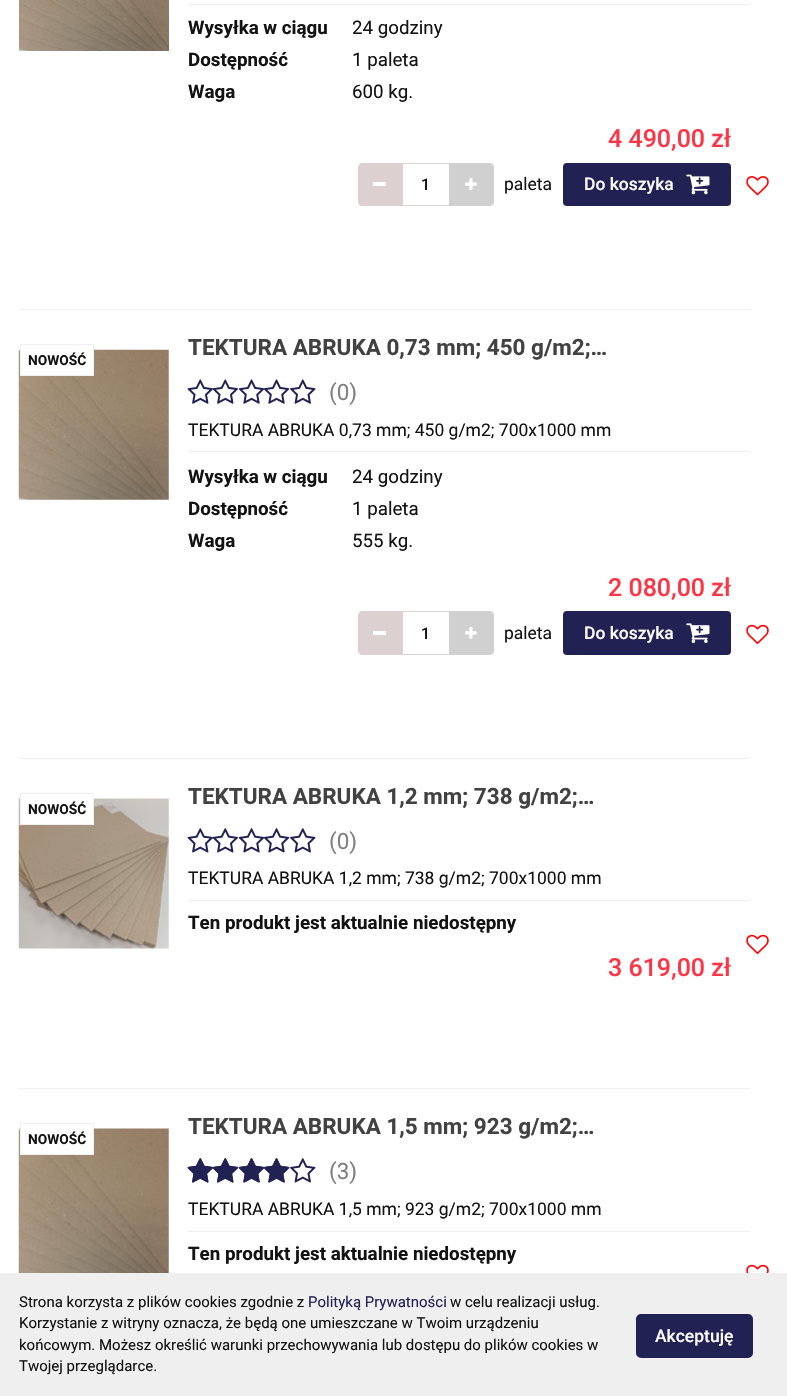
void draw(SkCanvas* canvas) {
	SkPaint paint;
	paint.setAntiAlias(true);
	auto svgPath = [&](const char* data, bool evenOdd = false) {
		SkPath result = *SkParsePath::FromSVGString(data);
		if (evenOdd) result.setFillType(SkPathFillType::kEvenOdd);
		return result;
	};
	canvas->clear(0xffffffff);
	canvas->drawImageRect(SkImages::DeferredFromEncodedData(SkData::MakeFromFileName("img1.png")), SkRect::MakeXYWH(19, 0, 150, 51), SkSamplingOptions());
	paint.setColor(0xffefefef);
	canvas->drawRect(SkRect::MakeXYWH(188, 4, 562, 1), paint);
	SkFont f1(fontMgr->matchFamilyStyle("Roboto", SkFontStyle::Bold()), 18.75);
	f1.setSubpixel(true);
	paint.setColor(0xff131313);
	canvas->drawString("Wysyłka w ciągu", 188, 34, f1, paint);
	SkFont f2(fontMgr->matchFamilyStyle("Roboto", SkFontStyle::Normal()), 18.75);
	f2.setSubpixel(true);
	canvas->drawString("24 godziny", 352, 34, f2, paint);
	canvas->drawString("Dostępność", 188, 66, f1, paint);
	canvas->drawString("1 paleta", 352, 66, f2, paint);
	canvas->drawString("Waga", 188, 98, f1, paint);
	canvas->drawString("600 kg.", 352, 98, f2, paint);
	SkFont f3(fontMgr->matchFamilyStyle("Roboto", SkFontStyle(500, SkFontStyle::kNormal_Width, SkFontStyle::kUpright_Slant)), 25);
	f3.setSubpixel(true);
	paint.setColor(0xffff3545);
	canvas->drawString("4 490,00 zł", 608, 147, f3, paint);
	paint.setColor(0xffddd0d0);
	canvas->drawPath(svgPath("M362 163H403V206H362C360 206 358 204 358 202V167C358 165 360 163 362 163Z"), paint);
	canvas->drawRect(SkRect::MakeXYWH(403, 163, 46, 1), paint);
	paint.setColor(0xffffffff);
	canvas->drawRect(SkRect::MakeXYWH(373, 182, 13, 4), paint);
	paint.setColor(0xffddd0d0);
	canvas->drawRect(SkRect::MakeXYWH(403, 205, 46, 1), paint);
	paint.setColor(0xffd0d0d0);
	canvas->drawPath(svgPath("M449 163H490C492 163 494 165 494 167V202C494 204 492 206 490 206H449Z"), paint);
	canvas->drawImageRect(SkImages::DeferredFromEncodedData(SkData::MakeFromFileName("img2.png")), SkRect::MakeXYWH(465, 178, 12, 12), SkSamplingOptions());
	SkFont f4(fontMgr->matchFamilyStyle("Roboto", SkFontStyle(500, SkFontStyle::kNormal_Width, SkFontStyle::kUpright_Slant)), 16);
	f4.setSubpixel(true);
	paint.setColor(0xff131313);
	canvas->drawString("1", 421, 190, f4, paint);
	SkFont f5(fontMgr->matchFamilyStyle("Roboto", SkFontStyle::Normal()), 17.5);
	f5.setSubpixel(true);
	canvas->drawString("paleta", 504, 190, f5, paint);
	paint.setColor(0xff212154);
	canvas->drawRoundRect(SkRect::MakeXYWH(563, 163, 168, 43), 4, 4, paint);
	SkFont f6(fontMgr->matchFamilyStyle("Roboto", SkFontStyle(500, SkFontStyle::kNormal_Width, SkFontStyle::kUpright_Slant)), 17.5);
	f6.setSubpixel(true);
	paint.setColor(0xffffffff);
	canvas->drawString("Do koszyka", 584, 190, f6, paint);
	canvas->drawImageRect(SkImages::DeferredFromEncodedData(SkData::MakeFromFileName("img3.png")), SkRect::MakeXYWH(686, 174, 24, 21), SkSamplingOptions());
	canvas->drawImageRect(SkImages::DeferredFromEncodedData(SkData::MakeFromFileName("img4.png")), SkRect::MakeXYWH(746, 176, 23, 20), SkSamplingOptions());
	paint.setColor(0xffefefef);
	canvas->drawRect(SkRect::MakeXYWH(19, 309, 731, 1), paint);
	canvas->drawImageRect(SkImages::DeferredFromEncodedData(SkData::MakeFromFileName("img5.png")), SkRect::MakeXYWH(18, 349, 151, 151), SkSamplingOptions());
	paint.setColor(0xffffffff);
	canvas->drawRect(SkRect::MakeXYWH(21, 349, 72, 26), paint);
	paint.setStroke(true);
	paint.setStrokeWidth(1);
	paint.setColor(0xffefefef);
	canvas->drawRect(SkRect::MakeXYWH(20.5, 344.5, 73, 31), paint);
	SkFont f7(fontMgr->matchFamilyStyle("Roboto", SkFontStyle::Bold()), 13.75);
	f7.setSubpixel(true);
	paint.setStroke(false);
	paint.setColor(0xff131313);
	canvas->drawString("NOWOŚĆ", 28, 365, f7, paint);
	paint.setColor(0xffefefef);
	canvas->drawRect(SkRect::MakeXYWH(188, 451, 562, 1), paint);
	SkFont f8(fontMgr->matchFamilyStyle("Roboto", SkFontStyle::Bold()), 22.5);
	f8.setSubpixel(true);
	paint.setColor(0xff424242);
	canvas->drawString("TEKTURA ABRUKA 0,73 mm; 450 g/m2;…", 188, 355, f8, paint);
	canvas->drawImageRect(SkImages::DeferredFromEncodedData(SkData::MakeFromFileName("img6.png")), SkRect::MakeXYWH(187, 379, 26, 25), SkSamplingOptions());
	canvas->drawImageRect(SkImages::DeferredFromEncodedData(SkData::MakeFromFileName("img7.png")), SkRect::MakeXYWH(212, 379, 26, 25), SkSamplingOptions());
	canvas->drawImageRect(SkImages::DeferredFromEncodedData(SkData::MakeFromFileName("img8.png")), SkRect::MakeXYWH(238, 379, 27, 25), SkSamplingOptions());
	canvas->drawImageRect(SkImages::DeferredFromEncodedData(SkData::MakeFromFileName("img9.png")), SkRect::MakeXYWH(263, 379, 27, 25), SkSamplingOptions());
	canvas->drawImageRect(SkImages::DeferredFromEncodedData(SkData::MakeFromFileName("img10.png")), SkRect::MakeXYWH(290, 379, 26, 25), SkSamplingOptions());
	SkFont f9(fontMgr->matchFamilyStyle("Roboto", SkFontStyle::Normal()), 22.5);
	f9.setSubpixel(true);
	paint.setColor(0xff808080);
	canvas->drawString("(0)", 329, 400, f9, paint);
	paint.setColor(0xff131313);
	canvas->drawString("TEKTURA ABRUKA 0,73 mm; 450 g/m2; 700x1000 mm", 188, 436, f5, paint);
	canvas->drawString("Wysyłka w ciągu", 188, 483, f1, paint);
	canvas->drawString("24 godziny", 352, 483, f2, paint);
	canvas->drawString("Dostępność", 188, 515, f1, paint);
	canvas->drawString("1 paleta", 352, 515, f2, paint);
	canvas->drawString("Waga", 188, 547, f1, paint);
	canvas->drawString("555 kg.", 352, 547, f2, paint);
	paint.setColor(0xffff3545);
	canvas->drawString("2 080,00 zł", 608, 596, f3, paint);
	paint.setColor(0xffddd0d0);
	canvas->drawPath(svgPath("M362 611H403V655H362C360 655 358 653 358 651V615C358 613 360 611 362 611Z"), paint);
	canvas->drawRect(SkRect::MakeXYWH(403, 611, 46, 1), paint);
	paint.setColor(0xffffffff);
	canvas->drawRect(SkRect::MakeXYWH(373, 631, 13, 4), paint);
	paint.setColor(0xffddd0d0);
	canvas->drawRect(SkRect::MakeXYWH(403, 654, 46, 1), paint);
	paint.setColor(0xffd0d0d0);
	canvas->drawPath(svgPath("M449 611H490C492 611 494 613 494 615V651C494 653 492 655 490 655H449Z"), paint);
	canvas->drawImageRect(SkImages::DeferredFromEncodedData(SkData::MakeFromFileName("img11.png")), SkRect::MakeXYWH(465, 627, 12, 12), SkSamplingOptions());
	paint.setColor(0xff131313);
	canvas->drawString("1", 421, 639, f4, paint);
	canvas->drawString("paleta", 504, 639, f5, paint);
	paint.setColor(0xff212154);
	canvas->drawRoundRect(SkRect::MakeXYWH(563, 611, 168, 44), 4, 4, paint);
	paint.setColor(0xffffffff);
	canvas->drawString("Do koszyka", 584, 639, f6, paint);
	canvas->drawImageRect(SkImages::DeferredFromEncodedData(SkData::MakeFromFileName("img12.png")), SkRect::MakeXYWH(686, 623, 24, 20), SkSamplingOptions());
	canvas->drawImageRect(SkImages::DeferredFromEncodedData(SkData::MakeFromFileName("img13.png")), SkRect::MakeXYWH(746, 624, 23, 21), SkSamplingOptions());
	paint.setColor(0xffefefef);
	canvas->drawRect(SkRect::MakeXYWH(19, 758, 731, 1), paint);
	canvas->drawImageRect(SkImages::DeferredFromEncodedData(SkData::MakeFromFileName("img14.png")), SkRect::MakeXYWH(18, 798, 151, 151), SkSamplingOptions());
	paint.setColor(0xffffffff);
	canvas->drawRect(SkRect::MakeXYWH(21, 798, 72, 26), paint);
	paint.setStroke(true);
	paint.setColor(0xffefefef);
	canvas->drawRect(SkRect::MakeXYWH(20.5, 793.5, 73, 31), paint);
	paint.setStroke(false);
	paint.setColor(0xff131313);
	canvas->drawString("NOWOŚĆ", 28, 814, f7, paint);
	paint.setColor(0xffefefef);
	canvas->drawRect(SkRect::MakeXYWH(188, 900, 562, 1), paint);
	paint.setColor(0xff424242);
	canvas->drawString("TEKTURA ABRUKA 1,2 mm; 738 g/m2;…", 188, 804, f8, paint);
	canvas->drawImageRect(SkImages::DeferredFromEncodedData(SkData::MakeFromFileName("img15.png")), SkRect::MakeXYWH(187, 828, 26, 25), SkSamplingOptions());
	canvas->drawImageRect(SkImages::DeferredFromEncodedData(SkData::MakeFromFileName("img16.png")), SkRect::MakeXYWH(212, 828, 26, 25), SkSamplingOptions());
	canvas->drawImageRect(SkImages::DeferredFromEncodedData(SkData::MakeFromFileName("img17.png")), SkRect::MakeXYWH(238, 828, 27, 25), SkSamplingOptions());
	canvas->drawImageRect(SkImages::DeferredFromEncodedData(SkData::MakeFromFileName("img18.png")), SkRect::MakeXYWH(264, 828, 26, 25), SkSamplingOptions());
	canvas->drawImageRect(SkImages::DeferredFromEncodedData(SkData::MakeFromFileName("img19.png")), SkRect::MakeXYWH(290, 828, 26, 25), SkSamplingOptions());
	paint.setColor(0xff808080);
	canvas->drawString("(0)", 329, 849, f9, paint);
	paint.setColor(0xff131313);
	canvas->drawString("TEKTURA ABRUKA 1,2 mm; 738 g/m2; 700x1000 mm", 188, 884, f5, paint);
	canvas->drawString("Ten produkt jest aktualnie niedostępny", 188, 929, f1, paint);
	canvas->drawImageRect(SkImages::DeferredFromEncodedData(SkData::MakeFromFileName("img13.png")), SkRect::MakeXYWH(746, 934, 23, 21), SkSamplingOptions());
	paint.setColor(0xffff3545);
	canvas->drawString("3 619,00 zł", 608, 976, f3, paint);
	paint.setColor(0xffefefef);
	canvas->drawRect(SkRect::MakeXYWH(19, 1088, 731, 1), paint);
	canvas->drawImageRect(SkImages::DeferredFromEncodedData(SkData::MakeFromFileName("img20.png")), SkRect::MakeXYWH(18, 1128, 151, 145), SkSamplingOptions());
	paint.setColor(0xffffffff);
	canvas->drawRect(SkRect::MakeXYWH(21, 1128, 72, 26), paint);
	paint.setStroke(true);
	paint.setColor(0xffefefef);
	canvas->drawRect(SkRect::MakeXYWH(20.5, 1123.5, 73, 31), paint);
	paint.setStroke(false);
	paint.setColor(0xff131313);
	canvas->drawString("NOWOŚĆ", 28, 1144, f7, paint);
	paint.setColor(0xffefefef);
	canvas->drawRect(SkRect::MakeXYWH(188, 1231, 562, 1), paint);
	paint.setColor(0xff424242);
	canvas->drawString("TEKTURA ABRUKA 1,5 mm; 923 g/m2;…", 188, 1134, f8, paint);
	canvas->drawImageRect(SkImages::DeferredFromEncodedData(SkData::MakeFromFileName("img22.png")), SkRect::MakeXYWH(188, 1158, 25, 25), SkSamplingOptions());
	canvas->drawImageRect(SkImages::DeferredFromEncodedData(SkData::MakeFromFileName("img23.png")), SkRect::MakeXYWH(212, 1158, 26, 25), SkSamplingOptions());
	canvas->drawImageRect(SkImages::DeferredFromEncodedData(SkData::MakeFromFileName("img21.png")), SkRect::MakeXYWH(187, 1158, 26, 25), SkSamplingOptions());
	canvas->drawImageRect(SkImages::DeferredFromEncodedData(SkData::MakeFromFileName("img24.png")), SkRect::MakeXYWH(238, 1158, 27, 25), SkSamplingOptions());
	canvas->drawImageRect(SkImages::DeferredFromEncodedData(SkData::MakeFromFileName("img25.png")), SkRect::MakeXYWH(264, 1158, 26, 25), SkSamplingOptions());
	canvas->drawImageRect(SkImages::DeferredFromEncodedData(SkData::MakeFromFileName("img26.png")), SkRect::MakeXYWH(212, 1158, 26, 25), SkSamplingOptions());
	canvas->drawImageRect(SkImages::DeferredFromEncodedData(SkData::MakeFromFileName("img27.png")), SkRect::MakeXYWH(238, 1158, 26, 25), SkSamplingOptions());
	canvas->drawImageRect(SkImages::DeferredFromEncodedData(SkData::MakeFromFileName("img28.png")), SkRect::MakeXYWH(264, 1158, 26, 25), SkSamplingOptions());
	canvas->drawImageRect(SkImages::DeferredFromEncodedData(SkData::MakeFromFileName("img19.png")), SkRect::MakeXYWH(290, 1158, 26, 25), SkSamplingOptions());
	paint.setColor(0xff808080);
	canvas->drawString("(3)", 329, 1179, f9, paint);
	paint.setColor(0xff131313);
	canvas->drawString("TEKTURA ABRUKA 1,5 mm; 923 g/m2; 700x1000 mm", 188, 1215, f5, paint);
	canvas->drawString("Ten produkt jest aktualnie niedostępny", 188, 1260, f1, paint);
	canvas->drawImageRect(SkImages::DeferredFromEncodedData(SkData::MakeFromFileName("img29.png")), SkRect::MakeXYWH(746, 1264, 23, 9), SkSamplingOptions());
	paint.setColor(0xffefefef);
	canvas->drawRect(SkRect::MakeXYWH(0, 1273, 787, 123), paint);
	SkFont f10(fontMgr->matchFamilyStyle("Roboto", SkFontStyle::Normal()), 15);
	f10.setSubpixel(true);
	paint.setColor(0xff131313);
	canvas->drawString("Strona korzysta z plików cookies zgodnie z", 19, 1307, f10, paint);
	paint.setColor(0xff212154);
	canvas->drawString("Polityką Prywatności", 308, 1307, f10, paint);
	paint.setColor(0xff131313);
	canvas->drawString("w celu realizacji usług.", 450, 1307, f10, paint);
	canvas->drawString("Korzystanie z witryny oznacza, że będą one umieszczane w Twoim urządzeniu", 19, 1328, f10, paint);
	canvas->drawString("końcowym. Możesz określić warunki przechowywania lub dostępu do plików cookies w", 19, 1350, f10, paint);
	canvas->drawString("Twojej przeglądarce.", 19, 1371, f10, paint);
	paint.setColor(0xff212154);
	canvas->drawRoundRect(SkRect::MakeXYWH(638, 1316, 113, 40), 3, 3, paint);
	paint.setStroke(true);
	paint.setStrokeWidth(4);
	canvas->drawRoundRect(SkRect::MakeXYWH(638, 1316, 113, 40), 3, 3, paint);
	paint.setStroke(false);
	paint.setColor(0xffffffff);
	canvas->drawString("Akceptuję", 655, 1342, f6, paint);
}
